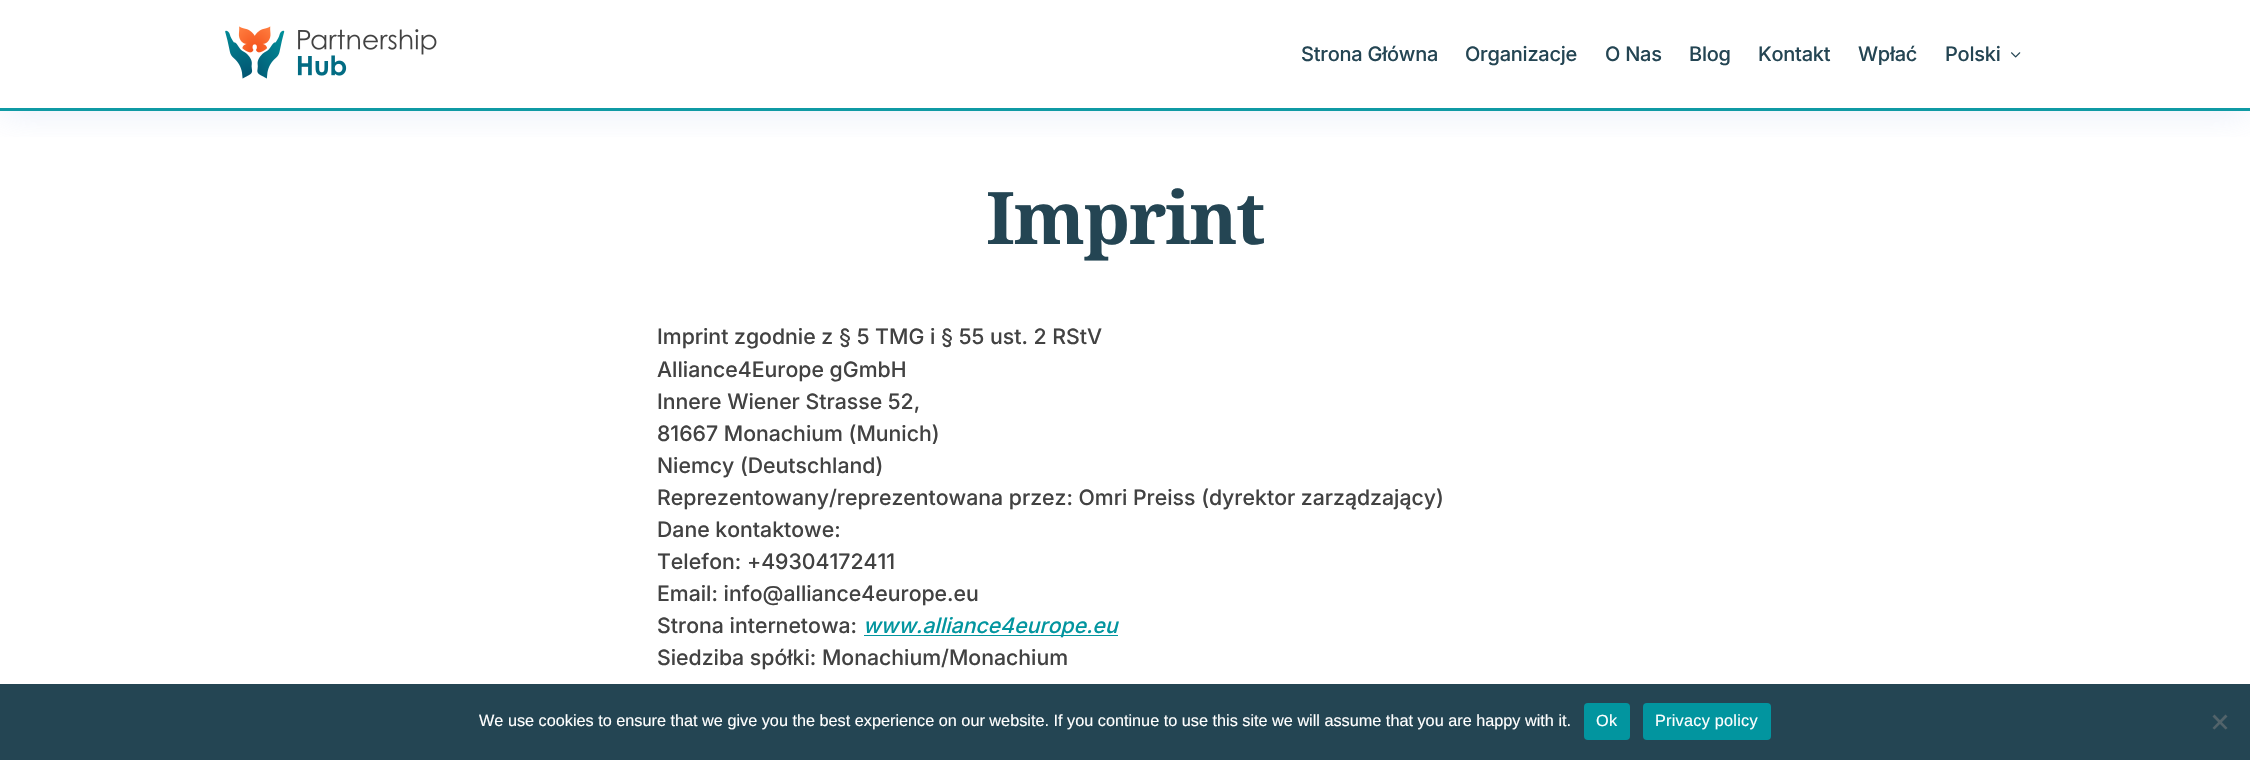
void draw(SkCanvas* canvas) {
	SkPaint paint;
	paint.setAntiAlias(true);
	auto spacedText = [&](const char* s, float x, float y, const SkFont& font, const SkPaint& ink, float letter, float word) {
		std::vector<SkGlyphID> glyphs(font.countText(s, strlen(s), SkTextEncoding::kUTF8));
		std::vector<float> xs(glyphs.size());
		font.textToGlyphs(s, strlen(s), SkTextEncoding::kUTF8, glyphs);
		font.getXPos(glyphs, xs, x);
		float extra = 0;
		for (size_t i = 0; i < glyphs.size(); i++) {
			xs[i] += extra;
			extra += letter + word * (glyphs[i] == font.unicharToGlyph(' '));
		}
		canvas->drawTextBlob(SkTextBlob::MakeFromPosHGlyphs(glyphs, xs, y, font), 0, 0, ink);
	};
	auto svgPath = [&](const char* data, bool evenOdd = false) {
		SkPath result = *SkParsePath::FromSVGString(data);
		if (evenOdd) result.setFillType(SkPathFillType::kEvenOdd);
		return result;
	};
	canvas->clear(0xffffffff);
	canvas->save();
	canvas->clipRect(SkRect::MakeXYWH(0, 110, 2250, 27));
	paint.setColor(0x4597b2e5);
	paint.setMaskFilter(SkMaskFilter::MakeBlur(kNormal_SkBlurStyle, 19));
	canvas->drawRect(SkRect::MakeXYWH(0, 0, 2250, 110), paint);
	paint.setMaskFilter(nullptr);
	canvas->restore();
	paint.setColor(0xf202959f);
	canvas->drawRect(SkRect::MakeXYWH(0, 108, 2250, 3), paint);
	canvas->drawImageRect(SkImages::DeferredFromEncodedData(SkData::MakeFromFileName("img1.png")), SkRect::MakeXYWH(225, 26, 212, 53), SkSamplingOptions());
	SkFont f1(fontMgr->matchFamilyStyle("Inter", SkFontStyle(500, SkFontStyle::kNormal_Width, SkFontStyle::kUpright_Slant)), 20);
	f1.setSubpixel(true);
	paint.setColor(0xff244553);
	spacedText("Strona Główna", 1301, 61, f1, paint, -0.25, 0);
	spacedText("Organizacje", 1465, 61, f1, paint, -0.25, 0);
	spacedText("O Nas", 1605, 61, f1, paint, -0.25, 0);
	spacedText("Blog", 1689, 61, f1, paint, -0.25, 0);
	spacedText("Kontakt", 1758, 61, f1, paint, -0.25, 0);
	spacedText("Wpłać", 1858, 61, f1, paint, -0.25, 0);
	spacedText("Polski", 1945, 61, f1, paint, -0.25, 0);
	canvas->drawImageRect(SkImages::DeferredFromEncodedData(SkData::MakeFromFileName("img2.png")), SkRect::MakeXYWH(2011, 52, 10, 6), SkSamplingOptions());
	SkFont f2(fontMgr->matchFamilyStyle("Noto Serif", SkFontStyle::Bold()), 72.5);
	f2.setSubpixel(true);
	spacedText("Imprint", 986, 244, f2, paint, -1.5, 0);
	SkFont f3(fontMgr->matchFamilyStyle("Inter", SkFontStyle(500, SkFontStyle::kNormal_Width, SkFontStyle::kUpright_Slant)), 21.25);
	f3.setSubpixel(true);
	paint.setColor(0xff424242);
	canvas->drawString("Imprint zgodnie z § 5 TMG i § 55 ust. 2 RStV", 657, 344, f3, paint);
	canvas->drawString("Alliance4Europe gGmbH", 657, 377, f3, paint);
	canvas->drawString("Innere Wiener Strasse 52,", 657, 409, f3, paint);
	canvas->drawString("81667 Monachium (Munich)", 657, 441, f3, paint);
	canvas->drawString("Niemcy (Deutschland)", 657, 473, f3, paint);
	canvas->drawString("Reprezentowany/reprezentowana przez: Omri Preiss (dyrektor zarządzający)", 657, 505, f3, paint);
	canvas->drawString("Dane kontaktowe:", 657, 537, f3, paint);
	canvas->drawString("Telefon: +49304172411", 657, 569, f3, paint);
	canvas->drawString("Email: info@alliance4europe.eu", 657, 601, f3, paint);
	canvas->drawString("Strona internetowa:", 657, 633, f3, paint);
	paint.setColor(0xff02959f);
	canvas->drawRect(SkRect::MakeXYWH(864, 635, 254, 1), paint);
	SkFont f4(fontMgr->matchFamilyStyle("Inter", SkFontStyle(500, SkFontStyle::kNormal_Width, SkFontStyle::kItalic_Slant)), 21.25);
	f4.setSubpixel(true);
	canvas->drawString("www.alliance4europe.eu", 863, 633, f4, paint);
	paint.setColor(0xff424242);
	canvas->drawString("Siedziba spółki: Monachium/Monachium", 657, 665, f3, paint);
	paint.setColor(0xff244553);
	canvas->drawRect(SkRect::MakeXYWH(0, 684, 2250, 76), paint);
	SkFont f5(fontMgr->matchFamilyStyle("Liberation Sans", SkFontStyle::Normal()), 16.25);
	f5.setSubpixel(true);
	paint.setColor(0xffffffff);
	canvas->drawString("We use cookies to ensure that we give you the best experience on our website. If you continue to use this site we will assume that you are happy with it.", 479, 726, f5, paint);
	paint.setColor(0xff02959f);
	canvas->drawRoundRect(SkRect::MakeXYWH(1584, 703, 46, 37), 4, 4, paint);
	paint.setColor(0xffffffff);
	spacedText("Ok", 1596, 726, f5, paint, 0.25, 0);
	paint.setColor(0xff02959f);
	canvas->drawRoundRect(SkRect::MakeXYWH(1643, 703, 128, 37), 4, 4, paint);
	paint.setColor(0xffffffff);
	spacedText("Privacy policy", 1655, 726, f5, paint, 0.25, 0);
	paint.setColor(0xff52636a);
	canvas->drawPath(svgPath("M2225.5 714.5L2227.5 716.5L2214.5 729.5L2212.5 728Z"), paint);
	canvas->drawPath(svgPath("M2212.5 716.5L2214.5 714.5L2227.5 728L2225.5 729.5Z"), paint);
}
